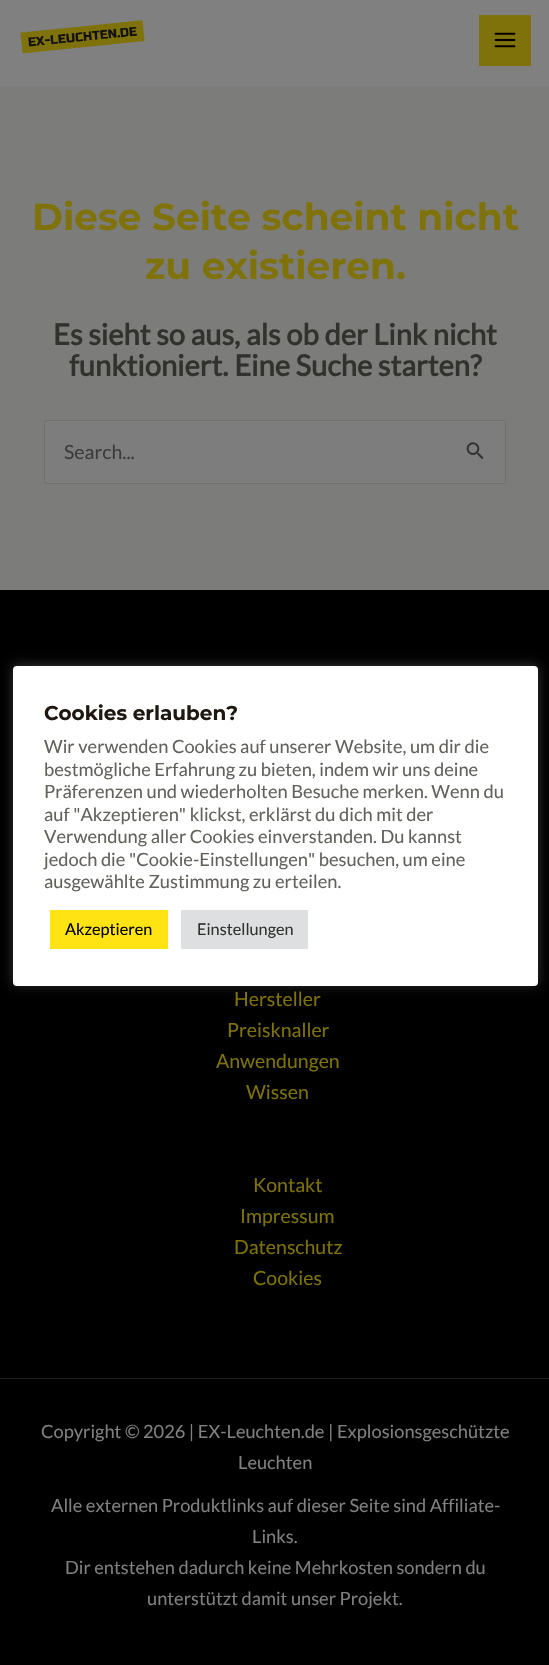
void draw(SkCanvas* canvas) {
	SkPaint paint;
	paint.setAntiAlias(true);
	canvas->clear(0xff7c7c7a);
	paint.setColor(0xff808080);
	canvas->drawRect(SkRect::MakeXYWH(0, 0, 549, 86), paint);
	canvas->drawImageRect(SkImages::DeferredFromEncodedData(SkData::MakeFromFileName("img1.png")), SkRect::MakeXYWH(20, 20, 125, 34), SkSamplingOptions());
	paint.setColor(0xff80720a);
	canvas->drawRect(SkRect::MakeXYWH(479, 15, 52, 51), paint);
	canvas->drawImageRect(SkImages::DeferredFromEncodedData(SkData::MakeFromFileName("img2.png")), SkRect::MakeXYWH(494, 32, 22, 16), SkSamplingOptions());
	SkFont f1(fontMgr->matchFamilyStyle("Montserrat", SkFontStyle(100, SkFontStyle::kNormal_Width, SkFontStyle::kUpright_Slant)), 37.5);
	f1.setSubpixel(true);
	canvas->drawString("Diese Seite scheint nicht", 32, 230, f1, paint);
	canvas->drawString("zu existieren.", 145, 279, f1, paint);
	SkFont f2(fontMgr->matchFamilyStyle("Lato", SkFontStyle::Bold()), 29.1);
	f2.setSubpixel(true);
	paint.setColor(0xff31312e);
	canvas->drawString("Es sieht so aus, als ob der Link nicht", 53, 345, f2, paint);
	canvas->drawString("funktioniert. Eine Suche starten?", 69, 376, f2, paint);
	paint.setColor(0xff7d7d7d);
	canvas->drawRoundRect(SkRect::MakeXYWH(44.5, 420.5, 461, 63), 2, 2, paint);
	paint.setStroke(true);
	paint.setStrokeWidth(1);
	paint.setColor(0xff6f6f6f);
	canvas->drawRoundRect(SkRect::MakeXYWH(44.5, 420.5, 461, 63), 2, 2, paint);
	SkFont f3(fontMgr->matchFamilyStyle("Lato", SkFontStyle::Normal()), 19.5);
	f3.setSubpixel(true);
	paint.setStroke(false);
	paint.setColor(0xff3b3b3b);
	canvas->drawString("Search...", 64, 459, f3, paint);
	canvas->drawImageRect(SkImages::DeferredFromEncodedData(SkData::MakeFromFileName("img3.png")), SkRect::MakeXYWH(466, 442, 18, 18), SkSamplingOptions());
	paint.setColor(0xff000000);
	canvas->drawRect(SkRect::MakeXYWH(0, 590, 549, 788), paint);
	paint.setColor(0xff80720a);
	canvas->drawString("Hersteller", 234, 1006, f3, paint);
	canvas->drawString("Preisknaller", 227, 1037, f3, paint);
	canvas->drawString("Anwendungen", 216, 1068, f3, paint);
	canvas->drawString("Wissen", 246, 1099, f3, paint);
	canvas->drawString("Kontakt", 253, 1192, f3, paint);
	canvas->drawString("Impressum", 240, 1223, f3, paint);
	canvas->drawString("Datenschutz", 234, 1254, f3, paint);
	canvas->drawString("Cookies", 253, 1285, f3, paint);
	paint.setColor(0xff000000);
	canvas->drawRect(SkRect::MakeXYWH(0, 1379, 549, 286), paint);
	paint.setColor(0xff1e1e1e);
	canvas->drawRect(SkRect::MakeXYWH(0, 1378, 549, 1), paint);
	SkFont f4(fontMgr->matchFamilyStyle("Lato", SkFontStyle::Normal()), 18.25);
	f4.setSubpixel(true);
	paint.setColor(0xff808080);
	canvas->drawString("Copyright © 2026 | EX-Leuchten.de | Explosionsgeschützte", 41, 1438, f4, paint);
	canvas->drawString("Leuchten", 238, 1469, f4, paint);
	canvas->drawString("Alle externen Produktlinks auf dieser Seite sind Affiliate-", 51, 1512, f4, paint);
	canvas->drawString("Links.", 252, 1543, f4, paint);
	canvas->drawString("Dir entstehen dadurch keine Mehrkosten sondern du", 65, 1574, f4, paint);
	canvas->drawString("unterstützt damit unser Projekt.", 147, 1605, f4, paint);
	paint.setColor(0x4dacabab);
	paint.setMaskFilter(SkMaskFilter::MakeBlur(kNormal_SkBlurStyle, 6));
	canvas->drawRoundRect(SkRect::MakeXYWH(13, 665, 525, 320), 4, 4, paint);
	paint.setMaskFilter(nullptr);
	paint.setColor(0xffffffff);
	canvas->drawRoundRect(SkRect::MakeXYWH(13, 666, 525, 320), 4, 4, paint);
	SkFont f5(fontMgr->matchFamilyStyle("Montserrat", SkFontStyle(100, SkFontStyle::kNormal_Width, SkFontStyle::kUpright_Slant)), 20);
	f5.setSubpixel(true);
	paint.setColor(0xff1e1810);
	canvas->drawString("Cookies erlauben?", 44, 720, f5, paint);
	SkFont f6(fontMgr->matchFamilyStyle("Lato", SkFontStyle::Normal()), 18.3);
	f6.setSubpixel(true);
	paint.setColor(0xff62615c);
	canvas->drawString("Wir verwenden Cookies auf unserer Website, um dir die", 44, 753, f6, paint);
	canvas->drawString("bestmögliche Erfahrung zu bieten, indem wir uns deine", 44, 776, f6, paint);
	canvas->drawString("Präferenzen und wiederholten Besuche merken. Wenn du", 44, 798, f6, paint);
	canvas->drawString("auf \"Akzeptieren\" klickst, erklärst du dich mit der", 44, 821, f6, paint);
	canvas->drawString("Verwendung aller Cookies einverstanden. Du kannst", 44, 843, f6, paint);
	canvas->drawString("jedoch die \"Cookie-Einstellungen\" besuchen, um eine", 44, 866, f6, paint);
	canvas->drawString("ausgewählte Zustimmung zu erteilen.", 44, 888, f6, paint);
	paint.setColor(0xffffe313);
	canvas->drawRect(SkRect::MakeXYWH(50, 910, 118, 39), paint);
	SkFont f7(fontMgr->matchFamilyStyle("Lato", SkFontStyle::Normal()), 16.25);
	f7.setSubpixel(true);
	paint.setColor(0xff000000);
	canvas->drawString("Akzeptieren", 65, 935, f7, paint);
	paint.setColor(0xffdedfe0);
	canvas->drawRect(SkRect::MakeXYWH(181, 910, 127, 39), paint);
	paint.setColor(0xff31312e);
	canvas->drawString("Einstellungen", 197, 935, f7, paint);
}
